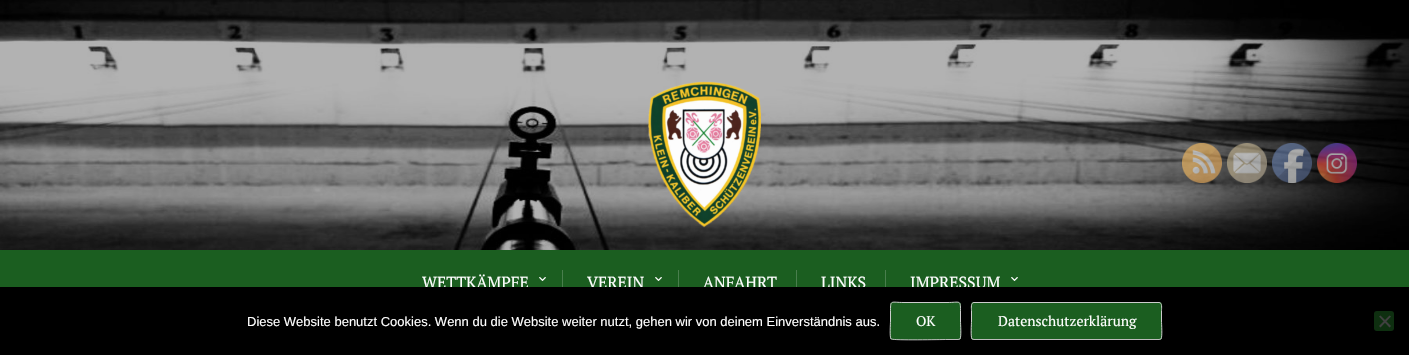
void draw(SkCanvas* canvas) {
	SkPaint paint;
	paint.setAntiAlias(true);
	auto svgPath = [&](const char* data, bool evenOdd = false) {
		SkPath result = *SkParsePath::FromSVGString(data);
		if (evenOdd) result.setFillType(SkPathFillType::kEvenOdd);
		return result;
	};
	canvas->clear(0xffffffff);
	canvas->drawImageRect(SkImages::DeferredFromEncodedData(SkData::MakeFromFileName("img5.png")), SkRect::MakeXYWH(0, 0, 1409, 250), SkSamplingOptions());
	paint.setColor(0x4d000000);
	canvas->drawRect(SkRect::MakeXYWH(0, 0, 1409, 250), paint);
	canvas->drawImageRect(SkImages::DeferredFromEncodedData(SkData::MakeFromFileName("img1.png")), SkRect::MakeXYWH(1182, 143, 40, 40), SkSamplingOptions());
	canvas->drawImageRect(SkImages::DeferredFromEncodedData(SkData::MakeFromFileName("img2.png")), SkRect::MakeXYWH(1227, 143, 40, 40), SkSamplingOptions());
	canvas->drawImageRect(SkImages::DeferredFromEncodedData(SkData::MakeFromFileName("img3.png")), SkRect::MakeXYWH(1272, 143, 40, 40), SkSamplingOptions());
	canvas->drawImageRect(SkImages::DeferredFromEncodedData(SkData::MakeFromFileName("img4.png")), SkRect::MakeXYWH(1317, 143, 40, 40), SkSamplingOptions());
	canvas->drawImageRect(SkImages::DeferredFromEncodedData(SkData::MakeFromFileName("img6.png")), SkRect::MakeXYWH(648, 81, 113, 147), SkSamplingOptions());
	paint.setColor(0xff1b5e20);
	canvas->drawRect(SkRect::MakeXYWH(0, 250, 1409, 37), paint);
	SkFont f1(fontMgr->matchFamilyStyle("PT Serif", SkFontStyle::Normal()), 16);
	f1.setSubpixel(true);
	paint.setColor(0xffffffff);
	canvas->drawString("WETTKÄMPFE", 422, 288, f1, paint);
	canvas->drawImageRect(SkImages::DeferredFromEncodedData(SkData::MakeFromFileName("img7.png")), SkRect::MakeXYWH(539, 277, 7, 4), SkSamplingOptions());
	paint.setColor(0xff497e4d);
	canvas->drawRect(SkRect::MakeXYWH(562, 270, 1, 25), paint);
	paint.setColor(0xffffffff);
	canvas->drawString("VEREIN", 587, 288, f1, paint);
	canvas->drawImageRect(SkImages::DeferredFromEncodedData(SkData::MakeFromFileName("img7.png")), SkRect::MakeXYWH(655, 277, 7, 4), SkSamplingOptions());
	paint.setColor(0xff497e4d);
	canvas->drawRect(SkRect::MakeXYWH(678, 270, 1, 25), paint);
	paint.setColor(0xffffffff);
	canvas->drawString("ANFAHRT", 703, 288, f1, paint);
	paint.setColor(0xff497e4d);
	canvas->drawRect(SkRect::MakeXYWH(796, 270, 1, 25), paint);
	paint.setColor(0xffffffff);
	canvas->drawString("LINKS", 821, 288, f1, paint);
	paint.setColor(0xff497e4d);
	canvas->drawRect(SkRect::MakeXYWH(885, 270, 1, 25), paint);
	paint.setColor(0xffffffff);
	canvas->drawString("IMPRESSUM", 910, 288, f1, paint);
	canvas->drawImageRect(SkImages::DeferredFromEncodedData(SkData::MakeFromFileName("img7.png")), SkRect::MakeXYWH(1011, 277, 7, 4), SkSamplingOptions());
	paint.setColor(0xff000000);
	canvas->drawRect(SkRect::MakeXYWH(0, 287, 1409, 68), paint);
	SkFont f2(fontMgr->matchFamilyStyle("Liberation Sans", SkFontStyle::Normal()), 13);
	f2.setSubpixel(true);
	paint.setColor(0xffffffff);
	canvas->drawString("Diese Website benutzt Cookies. Wenn du die Website weiter nutzt, gehen wir von deinem Einverständnis aus.", 247, 326, f2, paint);
	paint.setColor(0xff1b5e20);
	canvas->drawRoundRect(SkRect::MakeXYWH(890, 302, 71, 38), 3, 3, paint);
	paint.setStroke(true);
	paint.setStrokeWidth(1);
	paint.setColor(0xffbbbbbb);
	canvas->drawPath(svgPath("M960 339L958 339.5H947C941 339.5 893.5 340.5 891.5 339H891"), paint);
	paint.setColor(0xffcccccc);
	canvas->drawPath(svgPath("M891 339C889.5 337 890.5 324 890.5 321V310.5C890.5 299.5 891 302.5 904 302.5H947C960 302.5 960.5 299.5 960.5 310.5V321C960.5 324 961.5 337 960 339"), paint);
	SkFont f3(fontMgr->matchFamilyStyle("PT Serif", SkFontStyle::Normal()), 14);
	f3.setSubpixel(true);
	paint.setStroke(false);
	paint.setColor(0xffffffff);
	canvas->drawString("OK", 916, 326, f3, paint);
	paint.setColor(0xff1b5e20);
	canvas->drawRoundRect(SkRect::MakeXYWH(971, 302, 191, 38), 3, 3, paint);
	paint.setStroke(true);
	paint.setColor(0xffbbbbbb);
	canvas->drawPath(svgPath("M1161 339L1159 339.5H974L972 339"), paint);
	paint.setColor(0xffcccccc);
	canvas->drawPath(svgPath("M972 339C970.5 337 971.5 324 971.5 321V310.5C971.5 308.5 970.5 302.5 974 302.5H1159C1162.5 302.5 1161.5 308.5 1161.5 310.5V321C1161.5 324 1162.5 337 1161 339"), paint);
	paint.setStroke(false);
	paint.setColor(0xffffffff);
	canvas->drawString("Datenschutzerklärung", 998, 326, f3, paint);
	paint.setColor(0xff0e2f10);
	canvas->drawRoundRect(SkRect::MakeXYWH(1374, 311, 20, 20), 3, 3, paint);
	paint.setColor(0xff404040);
	canvas->drawPath(svgPath("M1389.5 315.5L1391 316.5L1380.5 327.5L1379 326Z"), paint);
	canvas->drawPath(svgPath("M1379 316.5L1380.5 315.5L1391 326L1389.5 327.5Z"), paint);
}
